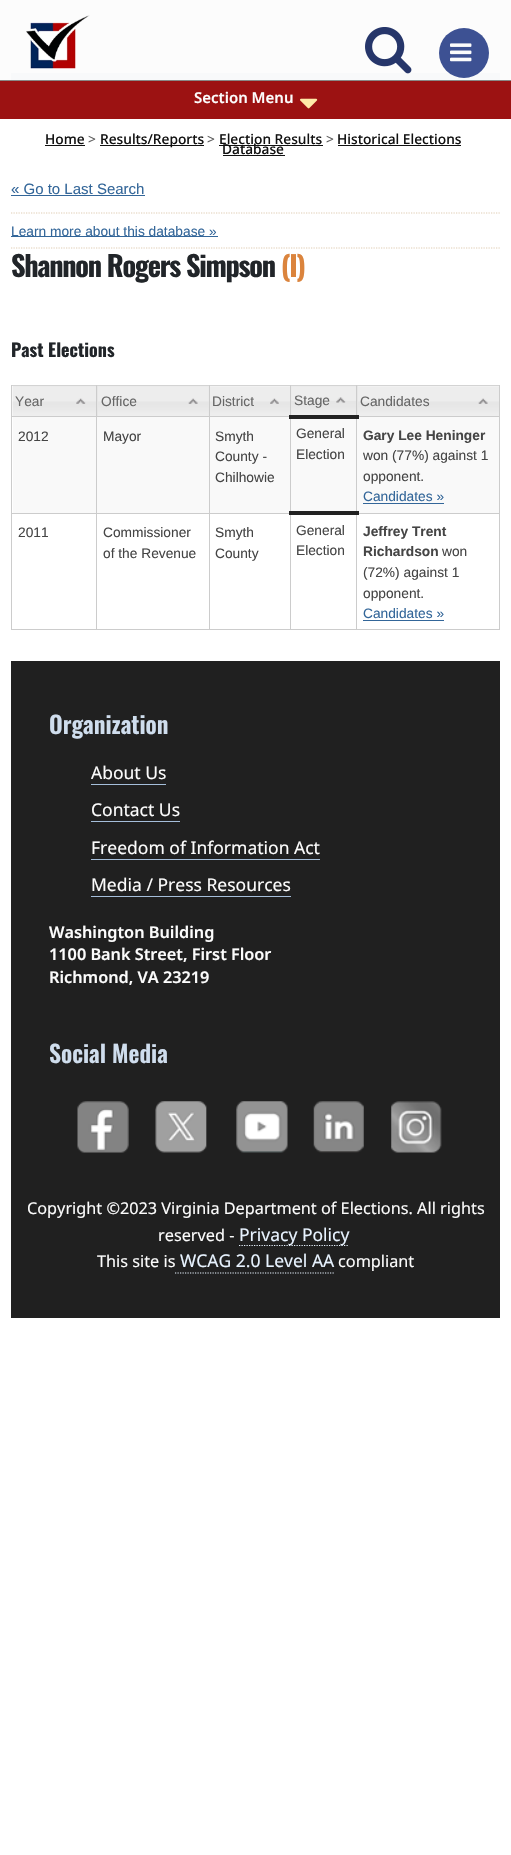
void draw(SkCanvas* canvas) {
	SkPaint paint;
	paint.setAntiAlias(true);
	auto spacedText = [&](const char* s, float x, float y, const SkFont& font, const SkPaint& ink, float letter, float word) {
		std::vector<SkGlyphID> glyphs(font.countText(s, strlen(s), SkTextEncoding::kUTF8));
		std::vector<float> xs(glyphs.size());
		font.textToGlyphs(s, strlen(s), SkTextEncoding::kUTF8, glyphs);
		font.getXPos(glyphs, xs, x);
		float extra = 0;
		for (size_t i = 0; i < glyphs.size(); i++) {
			xs[i] += extra;
			extra += letter + word * (glyphs[i] == font.unicharToGlyph(' '));
		}
		canvas->drawTextBlob(SkTextBlob::MakeFromPosHGlyphs(glyphs, xs, y, font), 0, 0, ink);
	};
	auto svgPath = [&](const char* data, bool evenOdd = false) {
		SkPath result = *SkParsePath::FromSVGString(data);
		if (evenOdd) result.setFillType(SkPathFillType::kEvenOdd);
		return result;
	};
	canvas->clear(0xffffffff);
	paint.setColor(0xfffcfcfc);
	canvas->drawRect(SkRect::MakeXYWH(0, 0, 511, 80), paint);
	paint.setColor(0xff898987);
	canvas->drawRect(SkRect::MakeXYWH(0, 80, 511, 1), paint);
	paint.setColor(0xfff8f9fa);
	canvas->drawRect(SkRect::MakeXYWH(11, 73, 489, 7), paint);
	canvas->drawImageRect(SkImages::DeferredFromEncodedData(SkData::MakeFromFileName("img1.png")), SkRect::MakeXYWH(26, 15, 64, 54), SkSamplingOptions());
	canvas->drawImageRect(SkImages::DeferredFromEncodedData(SkData::MakeFromFileName("img2.png")), SkRect::MakeXYWH(365, 27, 47, 47), SkSamplingOptions());
	paint.setColor(0xff3d5193);
	canvas->drawCircle(464, 53, 25, paint);
	canvas->drawImageRect(SkImages::DeferredFromEncodedData(SkData::MakeFromFileName("img3.png")), SkRect::MakeXYWH(450, 43, 22, 19), SkSamplingOptions());
	paint.setColor(0xff9c1212);
	canvas->drawRect(SkRect::MakeXYWH(0, 81, 511, 38), paint);
	SkFont f1(fontMgr->matchFamilyStyle("Noto Sans", SkFontStyle(600, SkFontStyle::kNormal_Width, SkFontStyle::kUpright_Slant)), 15);
	f1.setSubpixel(true);
	paint.setColor(0xfffcfcfc);
	canvas->drawString("Section Menu", 194, 103, f1, paint);
	canvas->drawImageRect(SkImages::DeferredFromEncodedData(SkData::MakeFromFileName("img4.png")), SkRect::MakeXYWH(300, 98, 18, 11), SkSamplingOptions());
	SkFont f2(fontMgr->matchFamilyStyle("Noto Sans", SkFontStyle(500, SkFontStyle::kNormal_Width, SkFontStyle::kUpright_Slant)), 13.75);
	f2.setSubpixel(true);
	paint.setColor(0xff111111);
	canvas->drawString("Home", 45, 144, f2, paint);
	canvas->drawRect(SkRect::MakeXYWH(45, 145, 40, 1), paint);
	SkFont f3(fontMgr->matchFamilyStyle("Noto Sans", SkFontStyle::Normal()), 13.75);
	f3.setSubpixel(true);
	paint.setColor(0xff606060);
	canvas->drawString(">", 88, 144, f3, paint);
	paint.setColor(0xff111111);
	canvas->drawRect(SkRect::MakeXYWH(100, 145, 104, 1), paint);
	canvas->drawString("Results/Reports", 100, 144, f2, paint);
	paint.setColor(0xff606060);
	canvas->drawString(">", 207, 144, f3, paint);
	paint.setColor(0xff111111);
	canvas->drawString("Election Results", 219, 144, f2, paint);
	canvas->drawRect(SkRect::MakeXYWH(219, 145, 104, 1), paint);
	paint.setColor(0xff606060);
	canvas->drawString(">", 326, 144, f3, paint);
	paint.setColor(0xff111111);
	canvas->drawString("Historical Elections", 337, 144, f2, paint);
	canvas->drawRect(SkRect::MakeXYWH(338, 145, 123, 1), paint);
	canvas->drawString("Database", 222, 154, f2, paint);
	canvas->drawRect(SkRect::MakeXYWH(223, 155, 62, 1), paint);
	SkFont f4(fontMgr->matchFamilyStyle("Liberation Sans", SkFontStyle::Normal()), 15);
	f4.setSubpixel(true);
	paint.setColor(0xff336699);
	canvas->drawString("« Go to Last Search", 11, 194, f4, paint);
	canvas->drawRect(SkRect::MakeXYWH(11, 195, 134, 1), paint);
	paint.setStroke(true);
	paint.setStrokeWidth(1.2);
	paint.setColor(0xffdfcdb3);
	paint.setPathEffect(SkDashPathEffect::Make({{1.25f, 1.25f}}, 0));
	canvas->drawPath(svgPath("M11 213H500"), paint);
	paint.setPathEffect(nullptr);
	paint.setPathEffect(SkDashPathEffect::Make({{1.25f, 1.25f}}, 0));
	canvas->drawPath(svgPath("M11 248H500"), paint);
	paint.setPathEffect(nullptr);
	paint.setStroke(false);
	paint.setColor(0xff336699);
	canvas->drawRect(SkRect::MakeXYWH(11, 236, 207, 1), paint);
	SkFont f5(fontMgr->matchFamilyStyle("Liberation Sans", SkFontStyle::Normal()), 13.75);
	f5.setSubpixel(true);
	canvas->drawString("Learn more about this database »", 11, 236, f5, paint);
	SkFont f6(fontMgr->matchFamilyStyle("Oswald", SkFontStyle::Bold()), 28.25);
	f6.setSubpixel(true);
	paint.setColor(0xff212529);
	spacedText("Shannon Rogers Simpson", 11, 277, f6, paint, -1.25, 0);
	paint.setColor(0xffdb843d);
	spacedText("(I)", 281, 277, f6, paint, -1.25, 0);
	SkFont f7(fontMgr->matchFamilyStyle("Oswald", SkFontStyle::Bold()), 18);
	f7.setSubpixel(true);
	paint.setColor(0xff212529);
	canvas->drawString("Past Elections", 11, 357, f7, paint);
	paint.setColor(0xffcccccc);
	canvas->drawRect(SkRect::MakeXYWH(11, 629, 489, 1), paint);
	paint.setColor(0xffe6e6e6);
	canvas->drawRect(SkRect::MakeXYWH(13, 386, 196, 30), paint);
	canvas->drawImageRect(SkImages::DeferredFromEncodedData(SkData::MakeFromFileName("img5.png")), SkRect::MakeXYWH(12, 386, 84, 30), SkSamplingOptions());
	paint.setColor(0xffd3d3d3);
	canvas->drawRect(SkRect::MakeXYWH(11, 385, 489, 1), paint);
	paint.setColor(0xfff9f9f9);
	canvas->drawRect(SkRect::MakeXYWH(13, 417, 486, 96), paint);
	paint.setColor(0xffcccccc);
	canvas->drawRect(SkRect::MakeXYWH(290, 416, 1, 214), paint);
	canvas->drawRect(SkRect::MakeXYWH(290, 385, 1, 33), paint);
	canvas->drawRect(SkRect::MakeXYWH(209, 513, 1, 117), paint);
	canvas->drawRect(SkRect::MakeXYWH(209, 513, 82, 1), paint);
	canvas->drawRect(SkRect::MakeXYWH(209, 416, 1, 98), paint);
	canvas->drawRect(SkRect::MakeXYWH(209, 416, 82, 1), paint);
	canvas->drawRect(SkRect::MakeXYWH(209, 385, 1, 33), paint);
	canvas->drawRect(SkRect::MakeXYWH(96, 513, 1, 117), paint);
	canvas->drawRect(SkRect::MakeXYWH(96, 513, 114, 1), paint);
	canvas->drawRect(SkRect::MakeXYWH(96, 416, 1, 98), paint);
	canvas->drawRect(SkRect::MakeXYWH(96, 416, 114, 1), paint);
	canvas->drawRect(SkRect::MakeXYWH(96, 385, 1, 33), paint);
	canvas->drawRect(SkRect::MakeXYWH(11, 513, 1, 117), paint);
	canvas->drawRect(SkRect::MakeXYWH(11, 513, 87, 1), paint);
	canvas->drawRect(SkRect::MakeXYWH(11, 416, 1, 98), paint);
	canvas->drawRect(SkRect::MakeXYWH(11, 416, 87, 1), paint);
	canvas->drawRect(SkRect::MakeXYWH(11, 385, 1, 33), paint);
	paint.setColor(0xff666666);
	canvas->drawString("Year", 15, 406, f5, paint);
	canvas->drawImageRect(SkImages::DeferredFromEncodedData(SkData::MakeFromFileName("img6.png")), SkRect::MakeXYWH(76, 398, 10, 6), SkSamplingOptions());
	canvas->drawImageRect(SkImages::DeferredFromEncodedData(SkData::MakeFromFileName("img7.png")), SkRect::MakeXYWH(98, 386, 111, 30), SkSamplingOptions());
	canvas->drawString("Office", 101, 406, f5, paint);
	canvas->drawImageRect(SkImages::DeferredFromEncodedData(SkData::MakeFromFileName("img8.png")), SkRect::MakeXYWH(188, 398, 10, 6), SkSamplingOptions());
	canvas->drawImageRect(SkImages::DeferredFromEncodedData(SkData::MakeFromFileName("img9.png")), SkRect::MakeXYWH(210, 386, 80, 30), SkSamplingOptions());
	canvas->drawString("District", 212, 406, f5, paint);
	canvas->drawImageRect(SkImages::DeferredFromEncodedData(SkData::MakeFromFileName("img10.png")), SkRect::MakeXYWH(270, 398, 9, 6), SkSamplingOptions());
	paint.setColor(0xffe6e6e6);
	canvas->drawRect(SkRect::MakeXYWH(291, 386, 67, 29), paint);
	canvas->drawImageRect(SkImages::DeferredFromEncodedData(SkData::MakeFromFileName("img11.png")), SkRect::MakeXYWH(291, 386, 65, 29), SkSamplingOptions());
	paint.setColor(0xffcccccc);
	canvas->drawRect(SkRect::MakeXYWH(499, 416, 1, 214), paint);
	canvas->drawRect(SkRect::MakeXYWH(499, 385, 1, 33), paint);
	canvas->drawRect(SkRect::MakeXYWH(356, 513, 1, 117), paint);
	canvas->drawRect(SkRect::MakeXYWH(356, 513, 144, 1), paint);
	canvas->drawRect(SkRect::MakeXYWH(356, 416, 1, 98), paint);
	canvas->drawRect(SkRect::MakeXYWH(356, 416, 144, 1), paint);
	canvas->drawRect(SkRect::MakeXYWH(356, 385, 1, 33), paint);
	paint.setColor(0xff666666);
	canvas->drawString("Stage", 294, 405, f5, paint);
	canvas->drawImageRect(SkImages::DeferredFromEncodedData(SkData::MakeFromFileName("img12.png")), SkRect::MakeXYWH(336, 397, 10, 6), SkSamplingOptions());
	canvas->drawImageRect(SkImages::DeferredFromEncodedData(SkData::MakeFromFileName("img13.png")), SkRect::MakeXYWH(358, 386, 141, 30), SkSamplingOptions());
	canvas->drawString("Candidates", 360, 406, f5, paint);
	canvas->drawImageRect(SkImages::DeferredFromEncodedData(SkData::MakeFromFileName("img8.png")), SkRect::MakeXYWH(478, 398, 10, 6), SkSamplingOptions());
	paint.setColor(0xff454545);
	canvas->drawString("2012", 18, 441, f5, paint);
	canvas->drawString("Mayor", 103, 441, f5, paint);
	canvas->drawString("Smyth", 215, 441, f5, paint);
	canvas->drawString("County -", 215, 461, f5, paint);
	canvas->drawString("Chilhowie", 215, 482, f5, paint);
	paint.setColor(0xff222222);
	canvas->drawRect(SkRect::MakeXYWH(289, 415, 70, 4), paint);
	paint.setColor(0xff454545);
	canvas->drawString("General", 296, 438, f5, paint);
	canvas->drawString("Election", 296, 459, f5, paint);
	SkFont f8(fontMgr->matchFamilyStyle("Liberation Sans", SkFontStyle::Bold()), 13.75);
	f8.setSubpixel(true);
	canvas->drawString("Gary Lee Heninger", 363, 440, f8, paint);
	canvas->drawString("won (77%) against 1", 363, 460, f5, paint);
	canvas->drawString("opponent.", 363, 481, f5, paint);
	paint.setColor(0xff336699);
	canvas->drawString("Candidates »", 363, 501, f5, paint);
	canvas->drawRect(SkRect::MakeXYWH(363, 503, 81, 1), paint);
	paint.setColor(0xff454545);
	canvas->drawString("2011", 18, 537, f5, paint);
	canvas->drawString("Commissioner", 103, 537, f5, paint);
	canvas->drawString("of the Revenue", 103, 558, f5, paint);
	canvas->drawString("Smyth", 215, 537, f5, paint);
	canvas->drawString("County", 215, 558, f5, paint);
	paint.setColor(0xff222222);
	canvas->drawRect(SkRect::MakeXYWH(289, 511, 70, 4), paint);
	paint.setColor(0xff454545);
	canvas->drawString("General", 296, 535, f5, paint);
	canvas->drawString("Election", 296, 555, f5, paint);
	canvas->drawString("Jeffrey Trent", 363, 536, f8, paint);
	canvas->drawString("Richardson", 363, 556, f8, paint);
	canvas->drawString("won", 442, 556, f5, paint);
	canvas->drawString("(72%) against 1", 363, 577, f5, paint);
	canvas->drawString("opponent.", 363, 598, f5, paint);
	paint.setColor(0xff336699);
	canvas->drawString("Candidates »", 363, 618, f5, paint);
	canvas->drawRect(SkRect::MakeXYWH(363, 620, 81, 1), paint);
	paint.setColor(0xff202020);
	canvas->drawRect(SkRect::MakeXYWH(11, 661, 489, 657), paint);
	SkFont f9(fontMgr->matchFamilyStyle("Oswald", SkFontStyle(600, SkFontStyle::kNormal_Width, SkFontStyle::kUpright_Slant)), 23.75);
	f9.setSubpixel(true);
	paint.setColor(0xffcfdded);
	canvas->drawString("Organization", 49, 734, f9, paint);
	SkFont f10(fontMgr->matchFamilyStyle("Noto Sans", SkFontStyle::Normal()), 17.5);
	f10.setSubpixel(true);
	paint.setColor(0xfffcfcfc);
	canvas->drawString("About Us", 91, 779, f10, paint);
	paint.setColor(0xffa5beda);
	canvas->drawRect(SkRect::MakeXYWH(91, 784, 75, 1), paint);
	paint.setColor(0xfffcfcfc);
	canvas->drawString("Contact Us", 91, 816, f10, paint);
	paint.setColor(0xffa5beda);
	canvas->drawRect(SkRect::MakeXYWH(91, 821, 89, 1), paint);
	paint.setColor(0xfffcfcfc);
	canvas->drawString("Freedom of Information Act", 91, 854, f10, paint);
	paint.setColor(0xffa5beda);
	canvas->drawRect(SkRect::MakeXYWH(91, 859, 229, 1), paint);
	paint.setColor(0xfffcfcfc);
	canvas->drawString("Media / Press Resources", 91, 891, f10, paint);
	paint.setColor(0xffa5beda);
	canvas->drawRect(SkRect::MakeXYWH(91, 896, 200, 1), paint);
	SkFont f11(fontMgr->matchFamilyStyle("Noto Sans", SkFontStyle(600, SkFontStyle::kNormal_Width, SkFontStyle::kUpright_Slant)), 16.25);
	f11.setSubpixel(true);
	paint.setColor(0xfffcfcfc);
	canvas->drawString("Washington Building", 49, 938, f11, paint);
	canvas->drawString("1100 Bank Street, First Floor", 49, 960, f11, paint);
	canvas->drawString("Richmond, VA 23219", 49, 983, f11, paint);
	paint.setColor(0xffcfdded);
	canvas->drawString("Social Media", 49, 1063, f9, paint);
	canvas->drawImageRect(SkImages::DeferredFromEncodedData(SkData::MakeFromFileName("img14.png")), SkRect::MakeXYWH(77, 1101, 52, 52), SkSamplingOptions());
	canvas->drawImageRect(SkImages::DeferredFromEncodedData(SkData::MakeFromFileName("img15.png")), SkRect::MakeXYWH(155, 1101, 52, 52), SkSamplingOptions());
	canvas->drawImageRect(SkImages::DeferredFromEncodedData(SkData::MakeFromFileName("img16.png")), SkRect::MakeXYWH(236, 1101, 52, 52), SkSamplingOptions());
	canvas->drawImageRect(SkImages::DeferredFromEncodedData(SkData::MakeFromFileName("img17.png")), SkRect::MakeXYWH(313, 1101, 51, 52), SkSamplingOptions());
	canvas->drawImageRect(SkImages::DeferredFromEncodedData(SkData::MakeFromFileName("img18.png")), SkRect::MakeXYWH(391, 1101, 51, 52), SkSamplingOptions());
	SkFont f12(fontMgr->matchFamilyStyle("Noto Sans", SkFontStyle::Normal()), 16.25);
	f12.setSubpixel(true);
	paint.setColor(0xfffcfcfc);
	canvas->drawString("Copyright ©2023 Virginia Department of Elections. All rights", 27, 1214, f12, paint);
	canvas->drawString("reserved -", 158, 1241, f12, paint);
	paint.setStroke(true);
	paint.setColor(0xffe8f3ff);
	paint.setPathEffect(SkDashPathEffect::Make({{1.25f, 1.25f}}, 0));
	canvas->drawPath(svgPath("M239 1245.5H349"), paint);
	paint.setPathEffect(nullptr);
	paint.setStroke(false);
	canvas->drawString("Privacy Policy", 239, 1241, f10, paint);
	paint.setColor(0xfffcfcfc);
	canvas->drawString("This site is", 97, 1267, f12, paint);
	paint.setColor(0xffe8f3ff);
	canvas->drawString("WCAG 2.0 Level AA", 180, 1267, f10, paint);
	paint.setStroke(true);
	paint.setPathEffect(SkDashPathEffect::Make({{1.25f, 1.25f}}, 0));
	canvas->drawPath(svgPath("M175 1273H334"), paint);
	paint.setPathEffect(nullptr);
	paint.setStroke(false);
	paint.setColor(0xfffcfcfc);
	canvas->drawString("compliant", 338, 1267, f12, paint);
}
